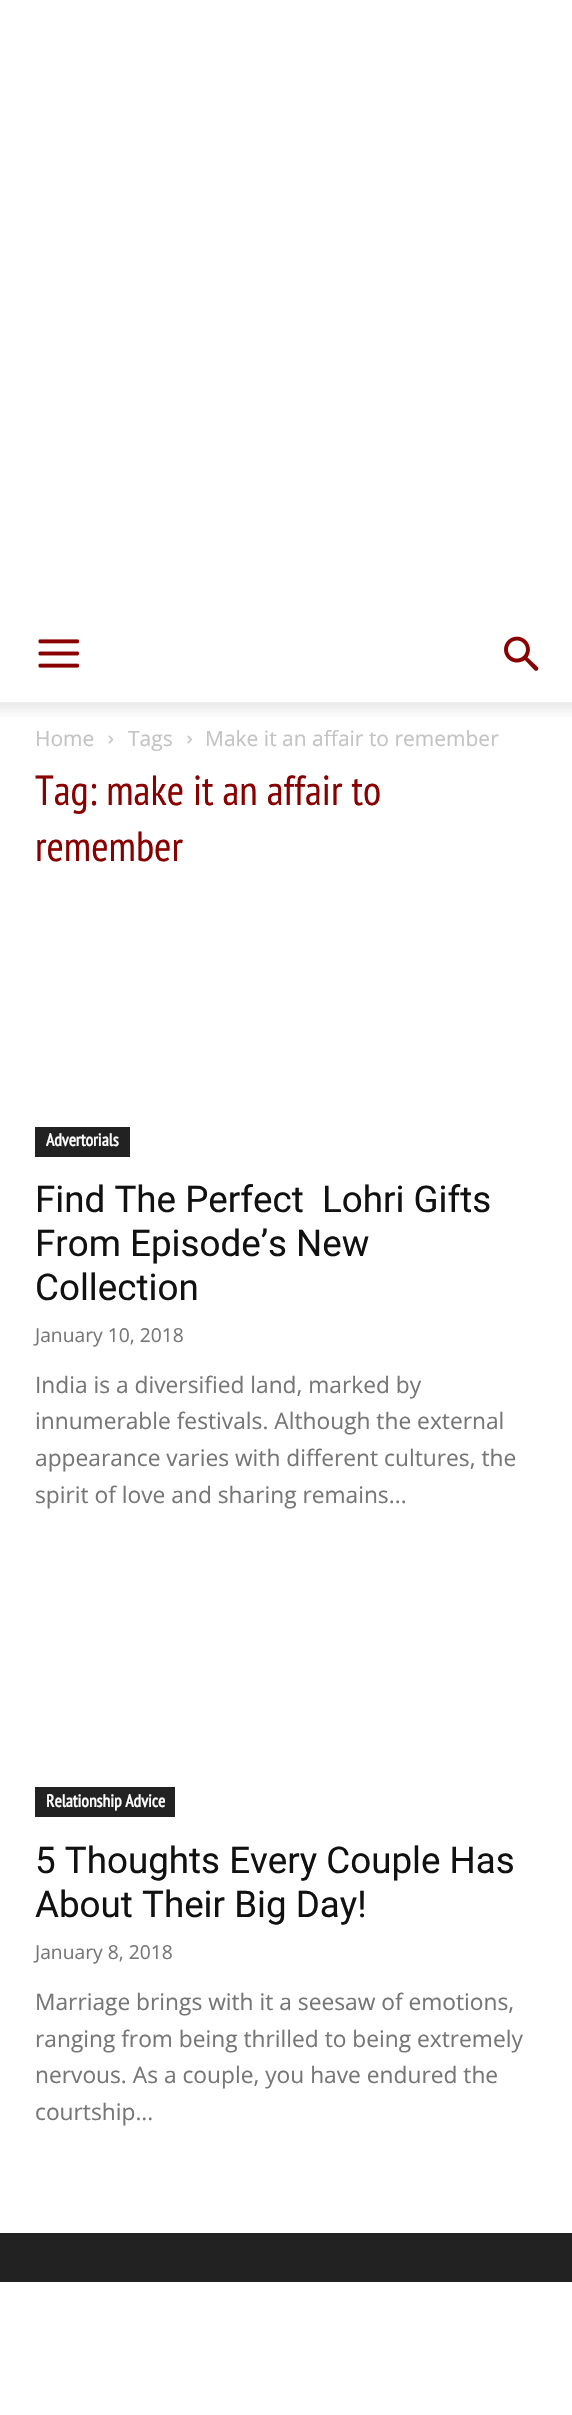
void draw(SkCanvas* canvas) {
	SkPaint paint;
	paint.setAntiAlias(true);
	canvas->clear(0xffffffff);
	canvas->drawImageRect(SkImages::DeferredFromEncodedData(SkData::MakeFromFileName("img1.png")), SkRect::MakeXYWH(38, 639, 41, 29), SkSamplingOptions());
	canvas->drawImageRect(SkImages::DeferredFromEncodedData(SkData::MakeFromFileName("img2.png")), SkRect::MakeXYWH(504, 636, 35, 35), SkSamplingOptions());
	canvas->drawImageRect(SkImages::DeferredFromEncodedData(SkData::MakeFromFileName("img3.png")), SkRect::MakeXYWH(0, 702, 572, 15), SkSamplingOptions());
	SkFont f1(fontMgr->matchFamilyStyle("Open Sans", SkFontStyle::Normal()), 21);
	f1.setSubpixel(true);
	paint.setColor(0xffc3c3c3);
	canvas->drawString("Home", 35, 746, f1, paint);
	canvas->drawImageRect(SkImages::DeferredFromEncodedData(SkData::MakeFromFileName("img4.png")), SkRect::MakeXYWH(108, 735, 6, 9), SkSamplingOptions());
	canvas->drawString("Tags", 128, 746, f1, paint);
	canvas->drawImageRect(SkImages::DeferredFromEncodedData(SkData::MakeFromFileName("img5.png")), SkRect::MakeXYWH(187, 735, 5, 9), SkSamplingOptions());
	canvas->drawString("Make it an affair to remember", 205, 746, f1, paint);
	SkFont f2(fontMgr->matchFamilyStyle("PT Sans Narrow", SkFontStyle::Normal()), 42);
	f2.setSubpixel(true);
	paint.setColor(0xff890000);
	canvas->drawString("Tag: make it an affair to", 35, 805, f2, paint);
	canvas->drawString("remember", 35, 861, f2, paint);
	paint.setColor(0xff222222);
	canvas->drawRect(SkRect::MakeXYWH(35, 1127, 95, 30), paint);
	SkFont f3(fontMgr->matchFamilyStyle("PT Sans Narrow", SkFontStyle::Bold()), 17.5);
	f3.setSubpixel(true);
	paint.setColor(0xffffffff);
	canvas->drawString("Advertorials", 46, 1146, f3, paint);
	SkFont f4(fontMgr->matchFamilyStyle("Roboto", SkFontStyle::Normal()), 36.75);
	f4.setSubpixel(true);
	paint.setColor(0xff111111);
	canvas->drawString("Find The Perfect  Lohri Gifts", 35, 1212, f4, paint);
	canvas->drawString("From Episode’s New", 35, 1256, f4, paint);
	canvas->drawString("Collection", 35, 1300, f4, paint);
	SkFont f5(fontMgr->matchFamilyStyle("Open Sans", SkFontStyle::Normal()), 19.25);
	f5.setSubpixel(true);
	paint.setColor(0xff767676);
	canvas->drawString("January 10, 2018", 35, 1342, f5, paint);
	SkFont f6(fontMgr->matchFamilyStyle("Open Sans", SkFontStyle::Normal()), 22.75);
	f6.setSubpixel(true);
	canvas->drawString("India is a diversified land, marked by", 35, 1393, f6, paint);
	canvas->drawString("innumerable festivals. Although the external", 35, 1429, f6, paint);
	canvas->drawString("appearance varies with different cultures, the", 35, 1466, f6, paint);
	canvas->drawString("spirit of love and sharing remains...", 35, 1503, f6, paint);
	paint.setColor(0xff222222);
	canvas->drawRect(SkRect::MakeXYWH(35, 1787, 140, 30), paint);
	paint.setColor(0xffffffff);
	canvas->drawString("Relationship Advice", 46, 1807, f3, paint);
	paint.setColor(0xff111111);
	canvas->drawString("5 Thoughts Every Couple Has", 35, 1873, f4, paint);
	canvas->drawString("About Their Big Day!", 35, 1917, f4, paint);
	paint.setColor(0xff767676);
	canvas->drawString("January 8, 2018", 35, 1959, f5, paint);
	canvas->drawString("Marriage brings with it a seesaw of emotions,", 35, 2010, f6, paint);
	canvas->drawString("ranging from being thrilled to being extremely", 35, 2047, f6, paint);
	canvas->drawString("nervous. As a couple, you have endured the", 35, 2083, f6, paint);
	canvas->drawString("courtship...", 35, 2120, f6, paint);
	paint.setColor(0xff222222);
	canvas->drawRect(SkRect::MakeXYWH(0, 2233, 572, 49), paint);
}
